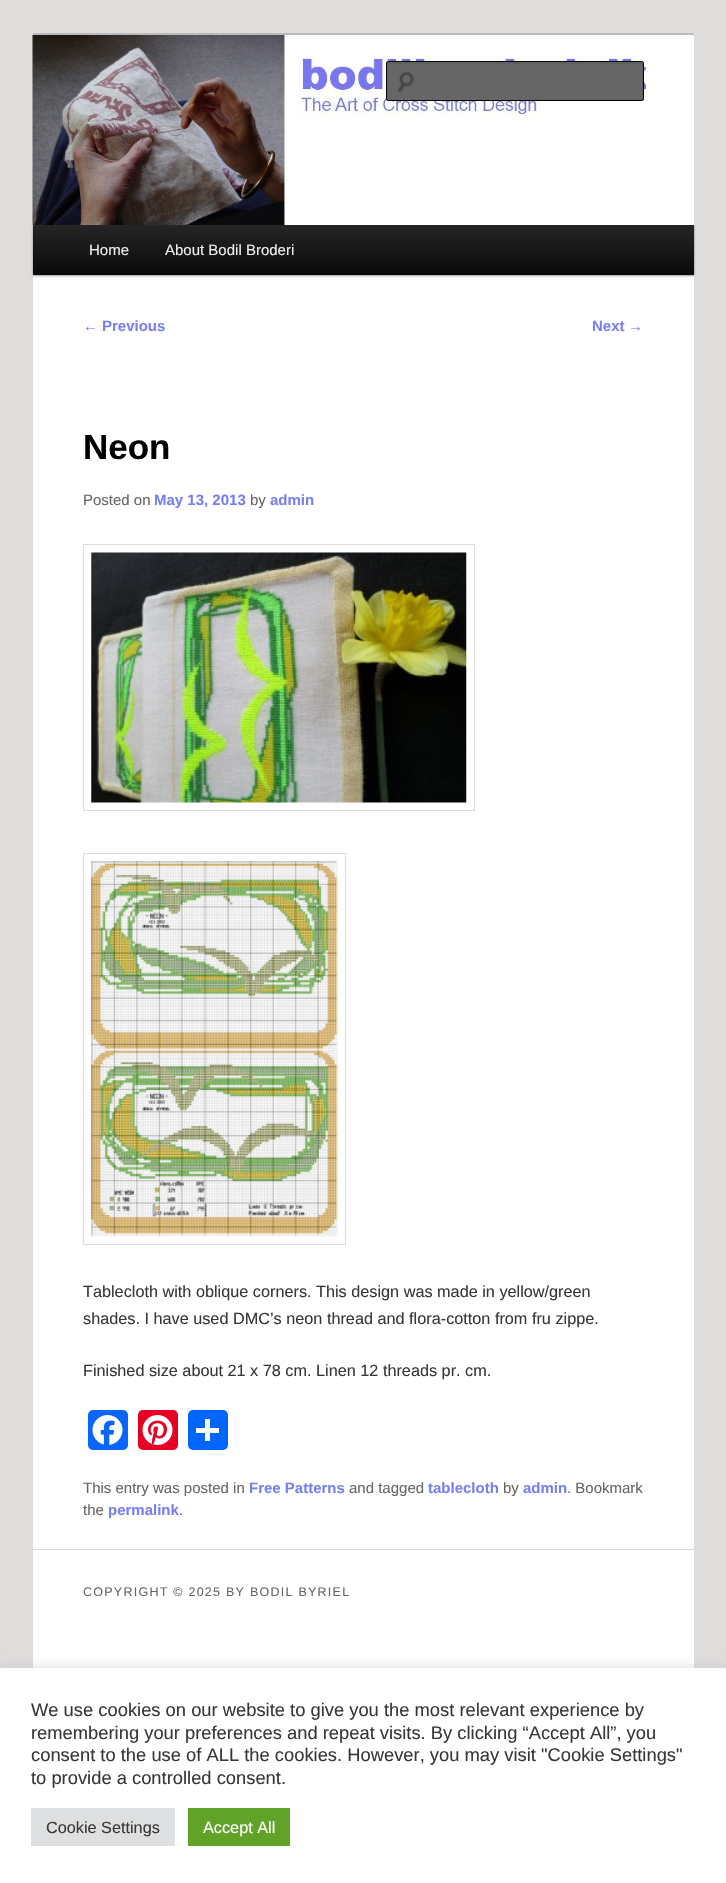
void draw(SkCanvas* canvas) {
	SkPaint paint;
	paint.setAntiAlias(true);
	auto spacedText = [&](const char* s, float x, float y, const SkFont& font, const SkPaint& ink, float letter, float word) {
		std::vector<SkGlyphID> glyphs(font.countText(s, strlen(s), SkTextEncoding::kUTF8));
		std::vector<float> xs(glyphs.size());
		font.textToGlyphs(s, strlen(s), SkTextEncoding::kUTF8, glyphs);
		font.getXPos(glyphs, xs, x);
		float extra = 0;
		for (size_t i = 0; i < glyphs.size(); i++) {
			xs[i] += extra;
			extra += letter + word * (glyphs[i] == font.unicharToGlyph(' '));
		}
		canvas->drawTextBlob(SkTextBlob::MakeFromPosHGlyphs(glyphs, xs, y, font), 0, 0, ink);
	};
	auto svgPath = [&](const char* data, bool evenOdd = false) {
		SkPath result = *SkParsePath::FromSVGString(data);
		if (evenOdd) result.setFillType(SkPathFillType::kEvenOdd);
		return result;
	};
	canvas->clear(0xffdfdcdc);
	paint.setColor(0xffffffff);
	canvas->drawRect(SkRect::MakeXYWH(33, 36, 661, 1632), paint);
	paint.setColor(0xffbbbbbb);
	canvas->drawRect(SkRect::MakeXYWH(33, 33, 661, 3), paint);
	paint.setColor(0x66000000);
	paint.setMaskFilter(SkMaskFilter::MakeBlur(kNormal_SkBlurStyle, 1));
	canvas->drawRect(SkRect::MakeXYWH(33, 226, 661, 50), paint);
	paint.setMaskFilter(nullptr);
	canvas->drawImageRect(SkImages::DeferredFromEncodedData(SkData::MakeFromFileName("img1.png")), SkRect::MakeXYWH(32, 35, 662, 190), SkSamplingOptions());
	paint.setColor(0xff666666);
	canvas->drawRoundRect(SkRect::MakeXYWH(386, 61, 258, 40), 2.5, 2.5, paint);
	canvas->drawImageRect(SkImages::DeferredFromEncodedData(SkData::MakeFromFileName("img2.png")), SkRect::MakeXYWH(397, 72, 17, 21), SkSamplingOptions());
	paint.setColor(0xff5c5c5c);
	canvas->drawPath(svgPath("M389 64H641C642 64 642 64 642 65V100L643 99V64L642 63H388V65C388 64 388 64 389 64Z"), paint);
	paint.setStroke(true);
	paint.setStrokeWidth(1);
	paint.setColor(0xff000000);
	canvas->drawRoundRect(SkRect::MakeXYWH(386.5, 61.5, 257, 39), 2, 2, paint);
	paint.setStroke(false);
	{
		const SkColor colors[] = {0xff252525, 0xff0a0a0a};
		const float stops[] = {0, 1};
		const SkPoint ends[] = {{363, 225}, {363, 275}};
		paint.setShader(SkGradientShader::MakeLinear(ends, colors, stops, 2, SkTileMode::kClamp));
		paint.setAlpha(255);
	}
	canvas->drawRect(SkRect::MakeXYWH(33, 225, 661, 50), paint);
	SkFont f1(fontMgr->matchFamilyStyle("Liberation Sans", SkFontStyle::Normal()), 15);
	f1.setSubpixel(true);
	paint.setShader(nullptr);
	paint.setColor(0xffeeeeee);
	canvas->drawString("Home", 89, 255, f1, paint);
	canvas->drawString("About Bodil Broderi", 165, 255, f1, paint);
	paint.setColor(0xff787ff1);
	canvas->drawString("←", 83, 331, f1, paint);
	SkFont f2(fontMgr->matchFamilyStyle("Liberation Sans", SkFontStyle::Bold()), 15);
	f2.setSubpixel(true);
	canvas->drawString("Previous", 102, 331, f2, paint);
	canvas->drawString("Next", 592, 331, f2, paint);
	canvas->drawString("→", 628, 331, f1, paint);
	SkFont f3(fontMgr->matchFamilyStyle("Liberation Sans", SkFontStyle::Bold()), 35);
	f3.setSubpixel(true);
	paint.setColor(0xff000000);
	canvas->drawString("Neon", 83, 459, f3, paint);
	paint.setColor(0xff666666);
	canvas->drawString("Posted on", 83, 505, f1, paint);
	paint.setColor(0xff787ff1);
	canvas->drawString("May 13, 2013", 154, 505, f2, paint);
	paint.setColor(0xff666666);
	canvas->drawString("by", 250, 505, f1, paint);
	paint.setColor(0xff787ff1);
	canvas->drawString("admin", 270, 505, f2, paint);
	paint.setStroke(true);
	paint.setColor(0xffdddddd);
	canvas->drawRect(SkRect::MakeXYWH(83.5, 544.5, 391, 266), paint);
	canvas->drawImageRect(SkImages::DeferredFromEncodedData(SkData::MakeFromFileName("img3.png")), SkRect::MakeXYWH(91, 552, 376, 251), SkSamplingOptions());
	canvas->drawRect(SkRect::MakeXYWH(83.5, 853.5, 262, 391), paint);
	canvas->drawImageRect(SkImages::DeferredFromEncodedData(SkData::MakeFromFileName("img4.png")), SkRect::MakeXYWH(91, 861, 247, 376), SkSamplingOptions());
	SkFont f4(fontMgr->matchFamilyStyle("Liberation Sans", SkFontStyle::Normal()), 16.25);
	f4.setSubpixel(true);
	paint.setStroke(false);
	paint.setColor(0xff373737);
	canvas->drawString("Tablecloth with oblique corners. This design was made in yellow/green", 83, 1297, f4, paint);
	canvas->drawString("shades. I have used DMC’s neon thread and flora-cotton from fru zippe.", 83, 1324, f4, paint);
	canvas->drawString("Finished size about 21 x 78 cm. Linen 12 threads pr. cm.", 83, 1376, f4, paint);
	paint.setColor(0xff0866ff);
	canvas->drawRoundRect(SkRect::MakeXYWH(88, 1410, 40, 40), 5, 5, paint);
	canvas->drawImageRect(SkImages::DeferredFromEncodedData(SkData::MakeFromFileName("img5.png")), SkRect::MakeXYWH(92, 1415, 31, 30), SkSamplingOptions());
	paint.setColor(0xffe60023);
	canvas->drawRoundRect(SkRect::MakeXYWH(138, 1410, 40, 40), 5, 5, paint);
	canvas->drawImageRect(SkImages::DeferredFromEncodedData(SkData::MakeFromFileName("img6.png")), SkRect::MakeXYWH(142, 1415, 31, 30), SkSamplingOptions());
	paint.setColor(0xff0166ff);
	canvas->drawRoundRect(SkRect::MakeXYWH(188, 1410, 40, 40), 5, 5, paint);
	paint.setColor(0xffffffff);
	canvas->drawRect(SkRect::MakeXYWH(205, 1419, 5, 22), paint);
	canvas->drawRect(SkRect::MakeXYWH(196, 1428, 23, 5), paint);
	paint.setColor(0xff666666);
	canvas->drawString("This entry was posted in", 83, 1493, f1, paint);
	paint.setColor(0xff787ff1);
	canvas->drawString("Free Patterns", 249, 1493, f2, paint);
	paint.setColor(0xff666666);
	canvas->drawString("and tagged", 349, 1493, f1, paint);
	paint.setColor(0xff787ff1);
	canvas->drawString("tablecloth", 428, 1493, f2, paint);
	paint.setColor(0xff666666);
	canvas->drawString("by", 503, 1493, f1, paint);
	paint.setColor(0xff787ff1);
	canvas->drawString("admin", 523, 1493, f2, paint);
	paint.setColor(0xff666666);
	canvas->drawString(". Bookmark", 567, 1493, f1, paint);
	canvas->drawString("the", 83, 1515, f1, paint);
	paint.setColor(0xff787ff1);
	canvas->drawString("permalink", 108, 1515, f2, paint);
	paint.setColor(0xff666666);
	canvas->drawString(".", 179, 1515, f1, paint);
	paint.setColor(0xffdddddd);
	canvas->drawRect(SkRect::MakeXYWH(33, 1549, 661, 1), paint);
	SkFont f5(fontMgr->matchFamilyStyle("Liberation Sans", SkFontStyle::Normal()), 12.5);
	f5.setSubpixel(true);
	paint.setColor(0xff666666);
	spacedText("COPYRIGHT © 2025 BY BODIL BYRIEL", 83, 1596, f5, paint, 1.25, 0);
	paint.setColor(0x4dacabab);
	paint.setMaskFilter(SkMaskFilter::MakeBlur(kNormal_SkBlurStyle, 6));
	canvas->drawRect(SkRect::MakeXYWH(0, 1666, 726, 217), paint);
	paint.setMaskFilter(nullptr);
	paint.setColor(0xffffffff);
	canvas->drawRect(SkRect::MakeXYWH(0, 1668, 726, 215), paint);
	SkFont f6(fontMgr->matchFamilyStyle("Liberation Sans", SkFontStyle::Normal()), 18.35);
	f6.setSubpixel(true);
	paint.setColor(0xff373737);
	canvas->drawString("We use cookies on our website to give you the most relevant experience by", 31, 1716, f6, paint);
	canvas->drawString("remembering your preferences and repeat visits. By clicking “Accept All”, you", 31, 1739, f6, paint);
	canvas->drawString("consent to the use of ALL the cookies. However, you may visit \"Cookie Settings\"", 31, 1761, f6, paint);
	canvas->drawString("to provide a controlled consent.", 31, 1784, f6, paint);
	paint.setColor(0xffdedfe0);
	canvas->drawRect(SkRect::MakeXYWH(31, 1808, 144, 38), paint);
	paint.setColor(0xff373737);
	canvas->drawString("Cookie Settings", 46, 1833, f4, paint);
	paint.setColor(0xff61a229);
	canvas->drawRect(SkRect::MakeXYWH(188, 1808, 102, 38), paint);
	paint.setColor(0xffffffff);
	canvas->drawString("Accept All", 203, 1833, f4, paint);
}
